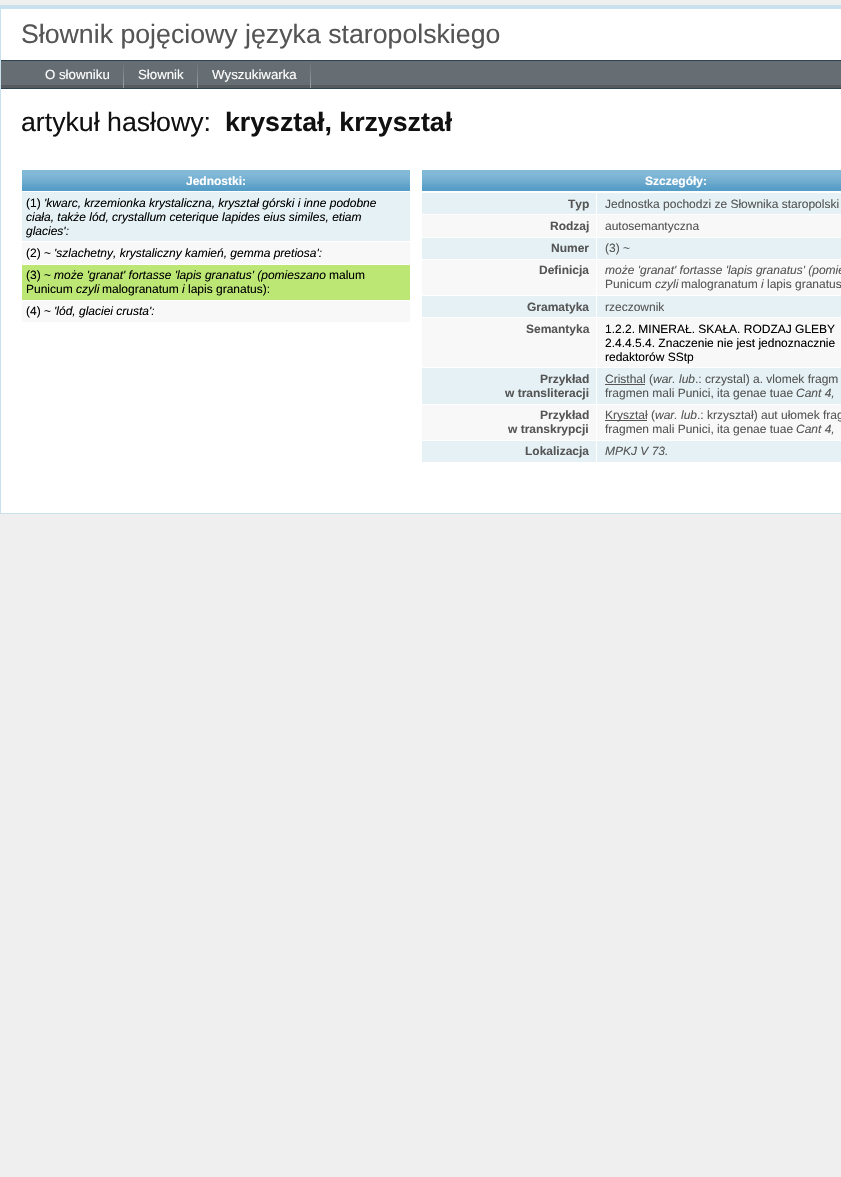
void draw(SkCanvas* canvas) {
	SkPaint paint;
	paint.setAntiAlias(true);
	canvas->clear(0xffefefef);
	paint.setColor(0xffffffff);
	canvas->drawRect(SkRect::MakeXYWH(1, 9, 840, 504), paint);
	paint.setStroke(true);
	paint.setStrokeWidth(1);
	paint.setColor(0xffc9e0ed);
	canvas->drawRect(SkRect::MakeXYWH(0.5, 5.5, 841, 508), paint);
	paint.setStroke(false);
	canvas->drawRect(SkRect::MakeXYWH(1, 6, 840, 3), paint);
	SkFont f1(fontMgr->matchFamilyStyle("Liberation Sans", SkFontStyle::Normal()), 26.7);
	f1.setSubpixel(true);
	paint.setColor(0xff555555);
	canvas->drawString("Słownik pojęciowy języka staropolskiego", 21, 43, f1, paint);
	paint.setColor(0xff666e73);
	canvas->drawRect(SkRect::MakeXYWH(1, 61, 840, 24), paint);
	paint.setColor(0xff565b5f);
	canvas->drawRect(SkRect::MakeXYWH(1, 85, 840, 3), paint);
	paint.setColor(0xff2d444f);
	canvas->drawRect(SkRect::MakeXYWH(1, 60, 840, 1), paint);
	canvas->drawRect(SkRect::MakeXYWH(1, 88, 840, 1), paint);
	canvas->drawImageRect(SkImages::DeferredFromEncodedData(SkData::MakeFromFileName("img1.png")), SkRect::MakeXYWH(123, 63, 1, 25), SkSamplingOptions());
	SkFont f2(fontMgr->matchFamilyStyle("Liberation Sans", SkFontStyle::Normal()), 13.25);
	f2.setSubpixel(true);
	paint.setColor(0xffffffff);
	canvas->drawString("O słowniku", 45, 79, f2, paint);
	canvas->drawImageRect(SkImages::DeferredFromEncodedData(SkData::MakeFromFileName("img1.png")), SkRect::MakeXYWH(197, 63, 1, 25), SkSamplingOptions());
	canvas->drawString("Słownik", 138, 79, f2, paint);
	canvas->drawImageRect(SkImages::DeferredFromEncodedData(SkData::MakeFromFileName("img1.png")), SkRect::MakeXYWH(310, 63, 1, 25), SkSamplingOptions());
	canvas->drawString("Wyszukiwarka", 212, 79, f2, paint);
	paint.setColor(0xff111111);
	canvas->drawString("artykuł hasłowy:", 21, 131, f1, paint);
	SkFont f3(fontMgr->matchFamilyStyle("Liberation Sans", SkFontStyle::Bold()), 26.7);
	f3.setSubpixel(true);
	canvas->drawString("kryształ, krzyształ", 225, 131, f3, paint);
	canvas->drawImageRect(SkImages::DeferredFromEncodedData(SkData::MakeFromFileName("img2.png")), SkRect::MakeXYWH(22, 170, 388, 21), SkSamplingOptions());
	SkFont f4(fontMgr->matchFamilyStyle("Liberation Sans", SkFontStyle::Bold()), 12);
	f4.setSubpixel(true);
	paint.setColor(0xffffffff);
	canvas->drawString("Jednostki:", 186, 185, f4, paint);
	paint.setColor(0xffe5f1f4);
	canvas->drawRect(SkRect::MakeXYWH(22, 192, 388, 49), paint);
	SkFont f5(fontMgr->matchFamilyStyle("Liberation Sans", SkFontStyle::Normal()), 12);
	f5.setSubpixel(true);
	paint.setColor(0xff000000);
	canvas->drawString("(1)", 26, 207, f5, paint);
	SkFont f6(fontMgr->matchFamilyStyle("Liberation Sans", SkFontStyle::Italic()), 12);
	f6.setSubpixel(true);
	canvas->drawString("'kwarc, krzemionka krystaliczna, kryształ górski i inne podobne", 44, 207, f6, paint);
	canvas->drawString("ciała, także lód, crystallum ceterique lapides eius similes, etiam", 26, 221, f6, paint);
	canvas->drawString("glacies':", 26, 235, f6, paint);
	paint.setColor(0xfff8f8f8);
	canvas->drawRect(SkRect::MakeXYWH(22, 242, 388, 22), paint);
	paint.setColor(0xff000000);
	canvas->drawString("(2) ~", 26, 257, f5, paint);
	canvas->drawString("'szlachetny, krystaliczny kamień, gemma pretiosa':", 54, 257, f6, paint);
	paint.setColor(0xffbce774);
	canvas->drawRect(SkRect::MakeXYWH(22, 265, 388, 35), paint);
	paint.setColor(0xff000000);
	canvas->drawString("(3) ~", 26, 279, f5, paint);
	canvas->drawString("może 'granat' fortasse 'lapis granatus' (pomieszano", 54, 279, f6, paint);
	canvas->drawString("malum", 329, 279, f5, paint);
	canvas->drawString("Punicum", 26, 293, f5, paint);
	canvas->drawString("czyli", 76, 293, f6, paint);
	canvas->drawString("malogranatum", 102, 293, f5, paint);
	canvas->drawString("i", 182, 293, f6, paint);
	canvas->drawString("lapis granatus):", 188, 293, f5, paint);
	paint.setColor(0xfff8f8f8);
	canvas->drawRect(SkRect::MakeXYWH(22, 301, 388, 21), paint);
	paint.setColor(0xff000000);
	canvas->drawString("(4) ~", 26, 315, f5, paint);
	canvas->drawString("'lód, glaciei crusta':", 54, 315, f6, paint);
	canvas->drawImageRect(SkImages::DeferredFromEncodedData(SkData::MakeFromFileName("img3.png")), SkRect::MakeXYWH(422, 170, 419, 21), SkSamplingOptions());
	paint.setColor(0xffffffff);
	canvas->drawString("Szczegóły:", 645, 185, f4, paint);
	paint.setColor(0xffe5f1f4);
	canvas->drawRect(SkRect::MakeXYWH(422, 193, 419, 21), paint);
	paint.setColor(0xff555555);
	canvas->drawString("Typ", 568, 208, f4, paint);
	canvas->drawString("Jednostka pochodzi ze Słownika staropolski", 605, 208, f5, paint);
	paint.setColor(0xfff8f8f8);
	canvas->drawRect(SkRect::MakeXYWH(422, 215, 419, 22), paint);
	paint.setColor(0xff555555);
	canvas->drawString("Rodzaj", 550, 230, f4, paint);
	canvas->drawString("autosemantyczna", 605, 230, f5, paint);
	paint.setColor(0xffe5f1f4);
	canvas->drawRect(SkRect::MakeXYWH(422, 238, 419, 21), paint);
	paint.setColor(0xff555555);
	canvas->drawString("Numer", 551, 252, f4, paint);
	canvas->drawString("(3) ~", 605, 252, f5, paint);
	paint.setColor(0xfff8f8f8);
	canvas->drawRect(SkRect::MakeXYWH(422, 260, 419, 35), paint);
	paint.setColor(0xff555555);
	canvas->drawString("Definicja", 539, 274, f4, paint);
	canvas->drawString("może 'granat' fortasse 'lapis granatus' (pomie", 605, 274, f6, paint);
	canvas->drawString("Punicum", 605, 288, f5, paint);
	canvas->drawString("czyli", 655, 288, f6, paint);
	canvas->drawString("malogranatum", 681, 288, f5, paint);
	canvas->drawString("i", 761, 288, f6, paint);
	canvas->drawString("lapis granatus", 767, 288, f5, paint);
	paint.setColor(0xffe5f1f4);
	canvas->drawRect(SkRect::MakeXYWH(422, 296, 419, 21), paint);
	paint.setColor(0xff555555);
	canvas->drawString("Gramatyka", 527, 311, f4, paint);
	canvas->drawString("rzeczownik", 605, 311, f5, paint);
	paint.setColor(0xfff8f8f8);
	canvas->drawRect(SkRect::MakeXYWH(422, 318, 419, 49), paint);
	paint.setColor(0xff555555);
	canvas->drawString("Semantyka", 526, 333, f4, paint);
	paint.setColor(0xff000000);
	canvas->drawString("1.2.2. MINERAŁ. SKAŁA. RODZAJ GLEBY", 605, 333, f5, paint);
	canvas->drawString("2.4.4.5.4. Znaczenie nie jest jednoznacznie", 605, 347, f5, paint);
	canvas->drawString("redaktorów SStp", 605, 361, f5, paint);
	paint.setColor(0xffe5f1f4);
	canvas->drawRect(SkRect::MakeXYWH(422, 368, 419, 36), paint);
	paint.setColor(0xff555555);
	canvas->drawString("Przykład", 540, 383, f4, paint);
	canvas->drawString("w transliteracji", 505, 397, f4, paint);
	canvas->drawRect(SkRect::MakeXYWH(605, 384, 40, 1), paint);
	canvas->drawString("Cristhal (", 605, 383, f5, paint);
	canvas->drawString("war. lub", 653, 383, f6, paint);
	canvas->drawString(".: crzystal) a. vlomek fragm", 695, 383, f5, paint);
	canvas->drawString("fragmen mali Punici, ita genae tuae", 605, 397, f5, paint);
	canvas->drawString("Cant 4,", 796, 397, f6, paint);
	paint.setColor(0xfff8f8f8);
	canvas->drawRect(SkRect::MakeXYWH(422, 405, 419, 35), paint);
	paint.setColor(0xff555555);
	canvas->drawString("Przykład", 540, 419, f4, paint);
	canvas->drawString("w transkrypcji", 508, 433, f4, paint);
	canvas->drawRect(SkRect::MakeXYWH(605, 420, 42, 1), paint);
	canvas->drawString("Kryształ (", 605, 419, f5, paint);
	canvas->drawString("war. lub", 655, 419, f6, paint);
	canvas->drawString(".: krzyształ) aut ułomek frag", 697, 419, f5, paint);
	canvas->drawString("fragmen mali Punici, ita genae tuae", 605, 433, f5, paint);
	canvas->drawString("Cant 4,", 796, 433, f6, paint);
	paint.setColor(0xffe5f1f4);
	canvas->drawRect(SkRect::MakeXYWH(422, 441, 419, 21), paint);
	paint.setColor(0xff555555);
	canvas->drawString("Lokalizacja", 525, 455, f4, paint);
	paint.setColor(0xffffffff);
	canvas->drawRect(SkRect::MakeXYWH(596, 192, 1, 271), paint);
	paint.setColor(0xff555555);
	canvas->drawString("MPKJ V 73.", 605, 455, f6, paint);
}
